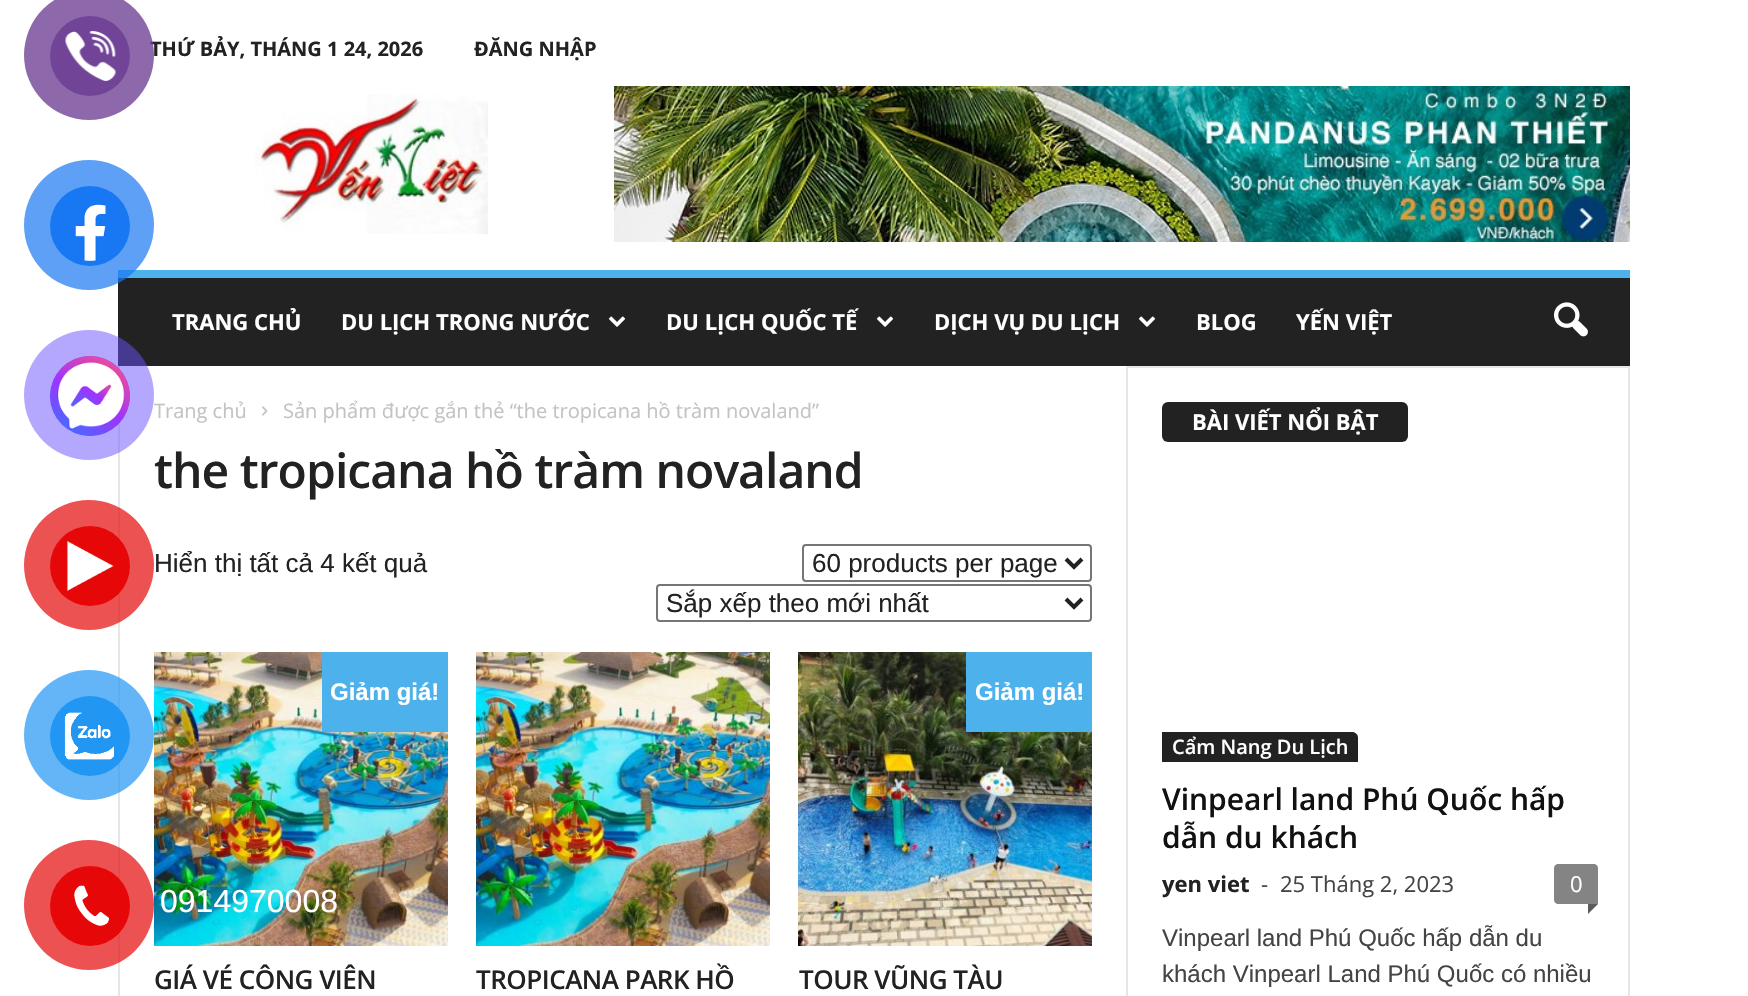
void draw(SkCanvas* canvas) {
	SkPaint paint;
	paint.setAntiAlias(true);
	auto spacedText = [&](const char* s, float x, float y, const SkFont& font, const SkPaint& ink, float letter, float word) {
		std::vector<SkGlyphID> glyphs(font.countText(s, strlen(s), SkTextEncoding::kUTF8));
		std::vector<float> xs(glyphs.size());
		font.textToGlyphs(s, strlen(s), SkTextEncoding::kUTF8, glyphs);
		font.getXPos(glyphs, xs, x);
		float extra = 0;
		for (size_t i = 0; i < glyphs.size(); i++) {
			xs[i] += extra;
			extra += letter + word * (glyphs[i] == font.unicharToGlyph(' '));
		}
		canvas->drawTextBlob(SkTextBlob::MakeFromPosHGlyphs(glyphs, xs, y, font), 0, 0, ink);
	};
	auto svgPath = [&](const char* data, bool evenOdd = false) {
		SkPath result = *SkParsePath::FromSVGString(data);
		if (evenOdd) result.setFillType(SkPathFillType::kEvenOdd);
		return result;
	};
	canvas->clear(0xffffffff);
	SkFont f1(fontMgr->matchFamilyStyle("Open Sans", SkFontStyle::Bold()), 20);
	f1.setSubpixel(true);
	paint.setColor(0xff222222);
	canvas->drawString("THỨ BẢY, THÁNG 1 24, 2026", 150, 56, f1, paint);
	canvas->drawString("ĐĂNG NHẬP", 474, 56, f1, paint);
	canvas->drawImageRect(SkImages::DeferredFromEncodedData(SkData::MakeFromFileName("img1.png")), SkRect::MakeXYWH(254, 94, 234, 140), SkSamplingOptions());
	canvas->drawImageRect(SkImages::DeferredFromEncodedData(SkData::MakeFromFileName("img2.png")), SkRect::MakeXYWH(614, 86, 1016, 156), SkSamplingOptions());
	canvas->drawRect(SkRect::MakeXYWH(118, 278, 1512, 88), paint);
	paint.setColor(0xff4db2ec);
	canvas->drawRect(SkRect::MakeXYWH(118, 270, 1512, 8), paint);
	SkFont f2(fontMgr->matchFamilyStyle("Open Sans", SkFontStyle::Bold()), 22);
	f2.setSubpixel(true);
	paint.setColor(0xffffffff);
	canvas->drawString("TRANG CHỦ", 172, 330, f2, paint);
	canvas->drawString("DU LỊCH TRONG NƯỚC", 341, 330, f2, paint);
	canvas->drawImageRect(SkImages::DeferredFromEncodedData(SkData::MakeFromFileName("img3.png")), SkRect::MakeXYWH(608, 316, 18, 11), SkSamplingOptions());
	canvas->drawString("DU LỊCH QUỐC TẾ", 666, 330, f2, paint);
	canvas->drawImageRect(SkImages::DeferredFromEncodedData(SkData::MakeFromFileName("img3.png")), SkRect::MakeXYWH(876, 316, 18, 11), SkSamplingOptions());
	canvas->drawString("DỊCH VỤ DU LỊCH", 934, 330, f2, paint);
	canvas->drawImageRect(SkImages::DeferredFromEncodedData(SkData::MakeFromFileName("img3.png")), SkRect::MakeXYWH(1138, 316, 18, 11), SkSamplingOptions());
	canvas->drawString("BLOG", 1196, 330, f2, paint);
	canvas->drawString("YẾN VIỆT", 1296, 330, f2, paint);
	canvas->drawImageRect(SkImages::DeferredFromEncodedData(SkData::MakeFromFileName("img4.png")), SkRect::MakeXYWH(1554, 302, 34, 35), SkSamplingOptions());
	paint.setColor(0xffe6e6e6);
	canvas->drawRect(SkRect::MakeXYWH(118, 366, 2, 630), paint);
	SkFont f3(fontMgr->matchFamilyStyle("Open Sans", SkFontStyle::Normal()), 20);
	f3.setSubpixel(true);
	paint.setColor(0xffc3c3c3);
	canvas->drawString("Trang chủ", 154, 418, f3, paint);
	canvas->drawImageRect(SkImages::DeferredFromEncodedData(SkData::MakeFromFileName("img5.png")), SkRect::MakeXYWH(262, 406, 6, 10), SkSamplingOptions());
	canvas->drawString("Sản phẩm được gắn thẻ “the tropicana hồ tràm novaland”", 283, 418, f3, paint);
	SkFont f4(fontMgr->matchFamilyStyle("Open Sans", SkFontStyle(600, SkFontStyle::kNormal_Width, SkFontStyle::kUpright_Slant)), 48);
	f4.setSubpixel(true);
	paint.setColor(0xff222222);
	spacedText("the tropicana hồ tràm novaland", 154, 488, f4, paint, -0.95, 0);
	SkFont f5(fontMgr->matchFamilyStyle("Liberation Sans", SkFontStyle::Normal()), 26);
	f5.setSubpixel(true);
	canvas->drawString("Hiển thị tất cả 4 kết quả", 154, 572, f5, paint);
	paint.setStroke(true);
	paint.setStrokeWidth(2);
	paint.setColor(0xff767676);
	canvas->drawRoundRect(SkRect::MakeXYWH(803, 545, 288, 36), 3, 3, paint);
	paint.setStrokeWidth(4);
	paint.setColor(0xff222222);
	canvas->drawPath(svgPath("M1066 559L1074 567L1082 559"), paint);
	paint.setStroke(false);
	canvas->drawString("60 products per page", 812, 572, f5, paint);
	paint.setStroke(true);
	paint.setStrokeWidth(2);
	paint.setColor(0xff767676);
	canvas->drawRoundRect(SkRect::MakeXYWH(657, 585, 434, 36), 3, 3, paint);
	paint.setStrokeWidth(4);
	paint.setColor(0xff222222);
	canvas->drawPath(svgPath("M1066 599L1074 607L1082 599"), paint);
	paint.setStroke(false);
	canvas->drawString("Sắp xếp theo mới nhất", 666, 612, f5, paint);
	canvas->drawImageRect(SkImages::DeferredFromEncodedData(SkData::MakeFromFileName("img6.png")), SkRect::MakeXYWH(154, 652, 294, 294), SkSamplingOptions());
	paint.setColor(0xff4db2ec);
	canvas->drawRect(SkRect::MakeXYWH(322, 652, 126, 80), paint);
	SkFont f6(fontMgr->matchFamilyStyle("Liberation Sans", SkFontStyle::Bold()), 24);
	f6.setSubpixel(true);
	paint.setColor(0xffffffff);
	canvas->drawString("Giảm giá!", 330, 700, f6, paint);
	SkFont f7(fontMgr->matchFamilyStyle("Open Sans", SkFontStyle(600, SkFontStyle::kNormal_Width, SkFontStyle::kUpright_Slant)), 26);
	f7.setSubpixel(true);
	paint.setColor(0xff222222);
	spacedText("GIÁ VÉ CÔNG VIÊN", 154, 989, f7, paint, -0.5, 0);
	canvas->drawImageRect(SkImages::DeferredFromEncodedData(SkData::MakeFromFileName("img7.png")), SkRect::MakeXYWH(476, 652, 294, 294), SkSamplingOptions());
	spacedText("TROPICANA PARK HỒ", 476, 989, f7, paint, -0.5, 0);
	canvas->drawImageRect(SkImages::DeferredFromEncodedData(SkData::MakeFromFileName("img8.png")), SkRect::MakeXYWH(798, 652, 294, 294), SkSamplingOptions());
	paint.setColor(0xff4db2ec);
	canvas->drawRect(SkRect::MakeXYWH(966, 652, 126, 80), paint);
	paint.setColor(0xffffffff);
	canvas->drawString("Giảm giá!", 975, 700, f6, paint);
	paint.setColor(0xff222222);
	spacedText("TOUR VŨNG TÀU", 799, 989, f7, paint, -0.5, 0);
	paint.setColor(0xffe6e6e6);
	canvas->drawRect(SkRect::MakeXYWH(1126, 366, 2, 630), paint);
	canvas->drawRect(SkRect::MakeXYWH(1628, 366, 2, 630), paint);
	canvas->drawRect(SkRect::MakeXYWH(1128, 366, 502, 2), paint);
	paint.setColor(0xff222222);
	canvas->drawRoundRect(SkRect::MakeXYWH(1162, 402, 246, 40), 6, 6, paint);
	paint.setColor(0xffffffff);
	canvas->drawString("BÀI VIẾT NỔI BẬT", 1192, 430, f2, paint);
	paint.setColor(0xff222222);
	canvas->drawPath(svgPath("M1162 732H1352C1355.5 732 1358 734.5 1358 738V762H1162Z"), paint);
	SkFont f8(fontMgr->matchFamilyStyle("Open Sans", SkFontStyle(600, SkFontStyle::kNormal_Width, SkFontStyle::kUpright_Slant)), 20);
	f8.setSubpixel(true);
	paint.setColor(0xffffffff);
	canvas->drawString("Cẩm Nang Du Lịch", 1172, 754, f8, paint);
	SkFont f9(fontMgr->matchFamilyStyle("Open Sans", SkFontStyle(600, SkFontStyle::kNormal_Width, SkFontStyle::kUpright_Slant)), 30);
	f9.setSubpixel(true);
	paint.setColor(0xff111111);
	canvas->drawString("Vinpearl land Phú Quốc hấp", 1162, 810, f9, paint);
	canvas->drawString("dẫn du khách", 1162, 848, f9, paint);
	paint.setColor(0xff222222);
	canvas->drawString("yen viet", 1162, 892, f2, paint);
	SkFont f10(fontMgr->matchFamilyStyle("Open Sans", SkFontStyle::Normal()), 22);
	f10.setSubpixel(true);
	paint.setColor(0xff444444);
	canvas->drawString("-", 1261, 892, f10, paint);
	canvas->drawString("25 Tháng 2, 2023", 1280, 892, f10, paint);
	paint.setColor(0xff848484);
	canvas->drawPath(svgPath("M1558 864H1594C1596 864 1598 866 1598 868V904H1558C1556 904 1554 902 1554 900V868C1554 866 1556 864 1558 864Z"), paint);
	paint.setColor(0xffffffff);
	canvas->drawString("0", 1570, 892, f10, paint);
	paint.setColor(0xff5b5b5b);
	canvas->drawPath(svgPath("M1588 904H1598L1588 914Z"), paint);
	SkFont f11(fontMgr->matchFamilyStyle("Liberation Sans", SkFontStyle::Normal()), 24);
	f11.setSubpixel(true);
	paint.setColor(0xff444444);
	canvas->drawString("Vinpearl land Phú Quốc hấp dẫn du", 1162, 946, f11, paint);
	canvas->drawString("khách Vinpearl Land Phú Quốc có nhiều", 1162, 982, f11, paint);
	paint.setColor(0xcc714497);
	canvas->drawCircle(89, 55, 65, paint);
	paint.setColor(0xff714497);
	canvas->drawCircle(90, 56, 40, paint);
	canvas->drawImageRect(SkImages::DeferredFromEncodedData(SkData::MakeFromFileName("img9.png")), SkRect::MakeXYWH(65, 31, 51, 50), SkSamplingOptions());
	paint.setColor(0xb31877f2);
	canvas->drawCircle(89, 225, 65, paint);
	paint.setColor(0xff1877f2);
	canvas->drawCircle(90, 226, 40, paint);
	canvas->drawImageRect(SkImages::DeferredFromEncodedData(SkData::MakeFromFileName("img10.png")), SkRect::MakeXYWH(75, 204, 31, 57), SkSamplingOptions());
	paint.setColor(0x806a4ffe);
	canvas->drawCircle(89, 395, 65, paint);
	paint.setColor(0xff6a4ffe);
	canvas->drawCircle(90, 396, 40, paint);
	canvas->drawImageRect(SkImages::DeferredFromEncodedData(SkData::MakeFromFileName("img11.png")), SkRect::MakeXYWH(50, 356, 80, 80), SkSamplingOptions());
	paint.setColor(0xb3e60808);
	canvas->drawCircle(89, 565, 65, paint);
	paint.setColor(0xffe60808);
	canvas->drawCircle(90, 566, 40, paint);
	canvas->drawImageRect(SkImages::DeferredFromEncodedData(SkData::MakeFromFileName("img12.png")), SkRect::MakeXYWH(67, 541, 47, 50), SkSamplingOptions());
	paint.setColor(0xb32196f3);
	canvas->drawCircle(89, 735, 65, paint);
	paint.setColor(0xff2196f3);
	canvas->drawCircle(90, 736, 40, paint);
	canvas->drawImageRect(SkImages::DeferredFromEncodedData(SkData::MakeFromFileName("img13.png")), SkRect::MakeXYWH(64, 712, 50, 48), SkSamplingOptions());
	paint.setColor(0xb3e60808);
	canvas->drawCircle(89, 905, 65, paint);
	paint.setColor(0xffe60808);
	canvas->drawCircle(90, 906, 40, paint);
	canvas->drawImageRect(SkImages::DeferredFromEncodedData(SkData::MakeFromFileName("img14.png")), SkRect::MakeXYWH(74, 885, 35, 41), SkSamplingOptions());
	SkFont f12(fontMgr->matchFamilyStyle("Liberation Sans", SkFontStyle::Normal()), 32);
	f12.setSubpixel(true);
	paint.setColor(0xffffffff);
	canvas->drawString("0914970008", 160, 912, f12, paint);
}
